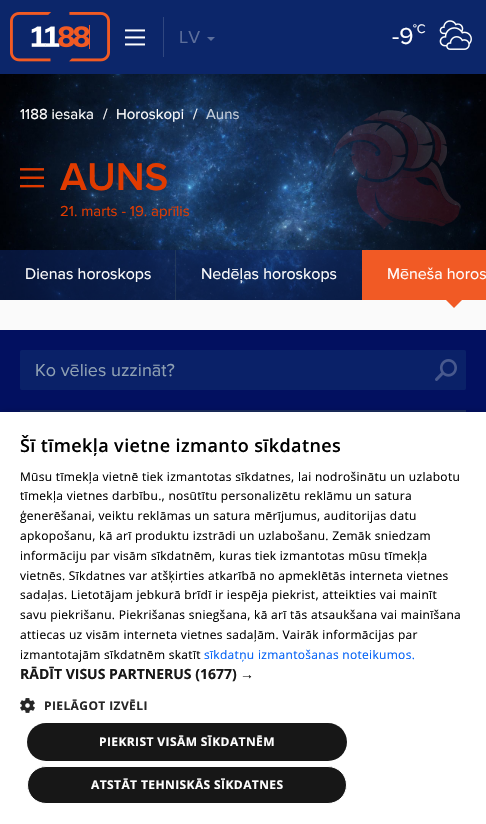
void draw(SkCanvas* canvas) {
	SkPaint paint;
	paint.setAntiAlias(true);
	auto spacedText = [&](const char* s, float x, float y, const SkFont& font, const SkPaint& ink, float letter, float word) {
		std::vector<SkGlyphID> glyphs(font.countText(s, strlen(s), SkTextEncoding::kUTF8));
		std::vector<float> xs(glyphs.size());
		font.textToGlyphs(s, strlen(s), SkTextEncoding::kUTF8, glyphs);
		font.getXPos(glyphs, xs, x);
		float extra = 0;
		for (size_t i = 0; i < glyphs.size(); i++) {
			xs[i] += extra;
			extra += letter + word * (glyphs[i] == font.unicharToGlyph(' '));
		}
		canvas->drawTextBlob(SkTextBlob::MakeFromPosHGlyphs(glyphs, xs, y, font), 0, 0, ink);
	};
	auto svgPath = [&](const char* data, bool evenOdd = false) {
		SkPath result = *SkParsePath::FromSVGString(data);
		if (evenOdd) result.setFillType(SkPathFillType::kEvenOdd);
		return result;
	};
	canvas->clear(0xff021060);
	paint.setColor(0xff0c266a);
	canvas->drawRect(SkRect::MakeXYWH(0, 0, 486, 74), paint);
	canvas->drawImageRect(SkImages::DeferredFromEncodedData(SkData::MakeFromFileName("img1.png")), SkRect::MakeXYWH(10, 12, 100, 50), SkSamplingOptions());
	paint.setColor(0xfff05a25);
	canvas->drawRect(SkRect::MakeXYWH(89, 25, 1, 24), paint);
	canvas->drawImageRect(SkImages::DeferredFromEncodedData(SkData::MakeFromFileName("img2.png")), SkRect::MakeXYWH(125, 29, 20, 17), SkSamplingOptions());
	paint.setColor(0xff304780);
	canvas->drawRect(SkRect::MakeXYWH(163, 17, 1, 40), paint);
	SkFont f1(fontMgr->matchFamilyStyle("Proxima Nova", SkFontStyle::Normal()), 18);
	f1.setSubpixel(true);
	paint.setColor(0xff5c6e9b);
	canvas->drawString("LV", 179, 43, f1, paint);
	canvas->drawPath(svgPath("M207 37H215L211 41Z"), paint);
	SkFont f2(fontMgr->matchFamilyStyle("Proxima Nova", SkFontStyle::Normal()), 24);
	f2.setSubpixel(true);
	paint.setColor(0xffffffff);
	canvas->drawString("-9", 392, 44, f2, paint);
	SkFont f3(fontMgr->matchFamilyStyle("Proxima Nova", SkFontStyle::Normal()), 13);
	f3.setSubpixel(true);
	canvas->drawString("°C", 413, 33, f3, paint);
	canvas->drawImageRect(SkImages::DeferredFromEncodedData(SkData::MakeFromFileName("img3.png")), SkRect::MakeXYWH(439, 20, 33, 30), SkSamplingOptions());
	canvas->drawImageRect(SkImages::DeferredFromEncodedData(SkData::MakeFromFileName("img4.png")), SkRect::MakeXYWH(0, 74, 486, 226), SkSamplingOptions());
	SkFont f4(fontMgr->matchFamilyStyle("Proxima Nova", SkFontStyle::Normal()), 15);
	f4.setSubpixel(true);
	canvas->drawString("1188 iesaka", 20, 119, f4, paint);
	canvas->drawString("/", 103, 119, f4, paint);
	canvas->drawString("Horoskopi", 116, 119, f4, paint);
	canvas->drawString("/", 193, 119, f4, paint);
	paint.setColor(0xffc7d0db);
	canvas->drawString("Auns", 206, 119, f4, paint);
	canvas->drawImageRect(SkImages::DeferredFromEncodedData(SkData::MakeFromFileName("img5.png")), SkRect::MakeXYWH(20, 168, 24, 20), SkSamplingOptions());
	SkFont f5(fontMgr->matchFamilyStyle("Proxima Nova", SkFontStyle(600, SkFontStyle::kNormal_Width, SkFontStyle::kUpright_Slant)), 40);
	f5.setSubpixel(true);
	paint.setColor(0xffe03b00);
	canvas->drawString("AUNS", 60, 190, f5, paint);
	canvas->drawImageRect(SkImages::DeferredFromEncodedData(SkData::MakeFromFileName("img6.png")), SkRect::MakeXYWH(332, 110, 129, 120), SkSamplingOptions());
	canvas->drawString("21. marts - 19. aprīlis", 60, 216, f4, paint);
	paint.setColor(0x800c266a);
	canvas->drawRect(SkRect::MakeXYWH(0, 250, 362, 50), paint);
	SkFont f6(fontMgr->matchFamilyStyle("Proxima Nova", SkFontStyle::Normal()), 16);
	f6.setSubpixel(true);
	paint.setColor(0xffffffff);
	canvas->drawString("Dienas horoskops", 25, 279, f6, paint);
	paint.setColor(0x8034495e);
	canvas->drawRect(SkRect::MakeXYWH(175, 250, 1, 50), paint);
	paint.setColor(0xffffffff);
	canvas->drawString("Nedēļas horoskops", 201, 279, f6, paint);
	paint.setColor(0xfff15a25);
	canvas->drawRect(SkRect::MakeXYWH(362, 250, 124, 50), paint);
	paint.setColor(0xffffffff);
	canvas->drawString("Mēneša horos", 387, 279, f6, paint);
	paint.setColor(0xfffafafa);
	canvas->drawRect(SkRect::MakeXYWH(0, 300, 486, 30), paint);
	paint.setColor(0xfff15a25);
	canvas->drawPath(svgPath("M446 300H462L454 308Z"), paint);
	paint.setColor(0xff0a2168);
	canvas->drawRoundRect(SkRect::MakeXYWH(20, 350, 446, 40), 2, 2, paint);
	paint.setColor(0xff8fa1b3);
	canvas->drawString("Ko vēlies uzzināt?", 35, 376, f1, paint);
	canvas->drawImageRect(SkImages::DeferredFromEncodedData(SkData::MakeFromFileName("img7.png")), SkRect::MakeXYWH(435, 359, 22, 22), SkSamplingOptions());
	paint.setColor(0xff1b2d5f);
	canvas->drawRect(SkRect::MakeXYWH(20, 410, 446, 2), paint);
	paint.setColor(0x59000000);
	paint.setMaskFilter(SkMaskFilter::MakeBlur(kNormal_SkBlurStyle, 4));
	canvas->drawRect(SkRect::MakeXYWH(1, 414, 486, 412), paint);
	paint.setMaskFilter(nullptr);
	paint.setColor(0xffffffff);
	canvas->drawRect(SkRect::MakeXYWH(0, 412, 486, 412), paint);
	SkFont f7(fontMgr->matchFamilyStyle("Open Sans", SkFontStyle(600, SkFontStyle::kNormal_Width, SkFontStyle::kUpright_Slant)), 18);
	f7.setSubpixel(true);
	paint.setColor(0xff000000);
	spacedText("Šī tīmekļa vietne izmanto sīkdatnes", 20, 452, f7, paint, 0.4, 0);
	SkFont f8(fontMgr->matchFamilyStyle("Open Sans", SkFontStyle::Normal()), 12);
	f8.setSubpixel(true);
	spacedText("Mūsu tīmekļa vietnē tiek izmantotas sīkdatnes, lai nodrošinātu un uzlabotu", 20, 481, f8, paint, 0.3, 0);
	spacedText("tīmekļa vietnes darbību., nosūtītu personalizētu reklāmu un satura", 20, 500, f8, paint, 0.3, 0);
	spacedText("ģenerēšanai, veiktu reklāmas un satura mērījumus, auditorijas datu", 20, 520, f8, paint, 0.3, 0);
	spacedText("apkopošanu, kā arī produktu izstrādi un uzlabošanu. Zemāk sniedzam", 20, 540, f8, paint, 0.3, 0);
	spacedText("informāciju par visām sīkdatnēm, kuras tiek izmantotas mūsu tīmekļa", 20, 560, f8, paint, 0.3, 0);
	spacedText("vietnēs. Sīkdatnes var atšķirties atkarībā no apmeklētās interneta vietnes", 20, 580, f8, paint, 0.3, 0);
	spacedText("sadaļas. Lietotājam jebkurā brīdī ir iespēja piekrist, atteikties vai mainīt", 20, 599, f8, paint, 0.3, 0);
	spacedText("savu piekrišanu. Piekrišanas sniegšana, kā arī tās atsaukšana vai mainīšana", 20, 619, f8, paint, 0.3, 0);
	spacedText("attiecas uz visām interneta vietnes sadaļām. Vairāk informācijas par", 20, 639, f8, paint, 0.3, 0);
	spacedText("izmantotajām sīkdatnēm skatīt", 20, 659, f8, paint, 0.3, 0);
	paint.setColor(0xff0060f5);
	spacedText("sīkdatņu izmantošanas noteikumos.", 204, 659, f8, paint, 0.3, 0);
	SkFont f9(fontMgr->matchFamilyStyle("Open Sans", SkFontStyle::Bold()), 14);
	f9.setSubpixel(true);
	paint.setColor(0xff171717);
	canvas->drawString("RĀDĪT VISUS PARTNERUS (1677)", 20, 679, f9, paint);
	SkFont f10(fontMgr->matchFamilyStyle("Liberation Sans", SkFontStyle::Bold()), 14);
	f10.setSubpixel(true);
	canvas->drawString("→", 240, 679, f10, paint);
	canvas->drawImageRect(SkImages::DeferredFromEncodedData(SkData::MakeFromFileName("img8.png")), SkRect::MakeXYWH(20, 698, 15, 15), SkSamplingOptions());
	SkFont f11(fontMgr->matchFamilyStyle("Open Sans", SkFontStyle::Bold()), 12);
	f11.setSubpixel(true);
	paint.setColor(0xff262626);
	spacedText("PIELĀGOT IZVĒLI", 44, 710, f11, paint, 0.4, 0);
	paint.setColor(0xff171717);
	canvas->drawRoundRect(SkRect::MakeXYWH(27, 723, 320, 38), 19, 19, paint);
	paint.setColor(0xffffffff);
	spacedText("PIEKRIST VISĀM SĪKDATNĒM", 99, 746, f11, paint, 0.4, 0);
	paint.setColor(0xff171717);
	canvas->drawRoundRect(SkRect::MakeXYWH(27.5, 766.5, 319, 37), 18.5, 18.5, paint);
	paint.setStroke(true);
	paint.setStrokeWidth(1);
	paint.setColor(0xffffffff);
	canvas->drawRoundRect(SkRect::MakeXYWH(27.5, 766.5, 319, 37), 18.5, 18.5, paint);
	paint.setStroke(false);
	spacedText("ATSTĀT TEHNISKĀS SĪKDATNES", 91, 789, f11, paint, 0.4, 0);
}
